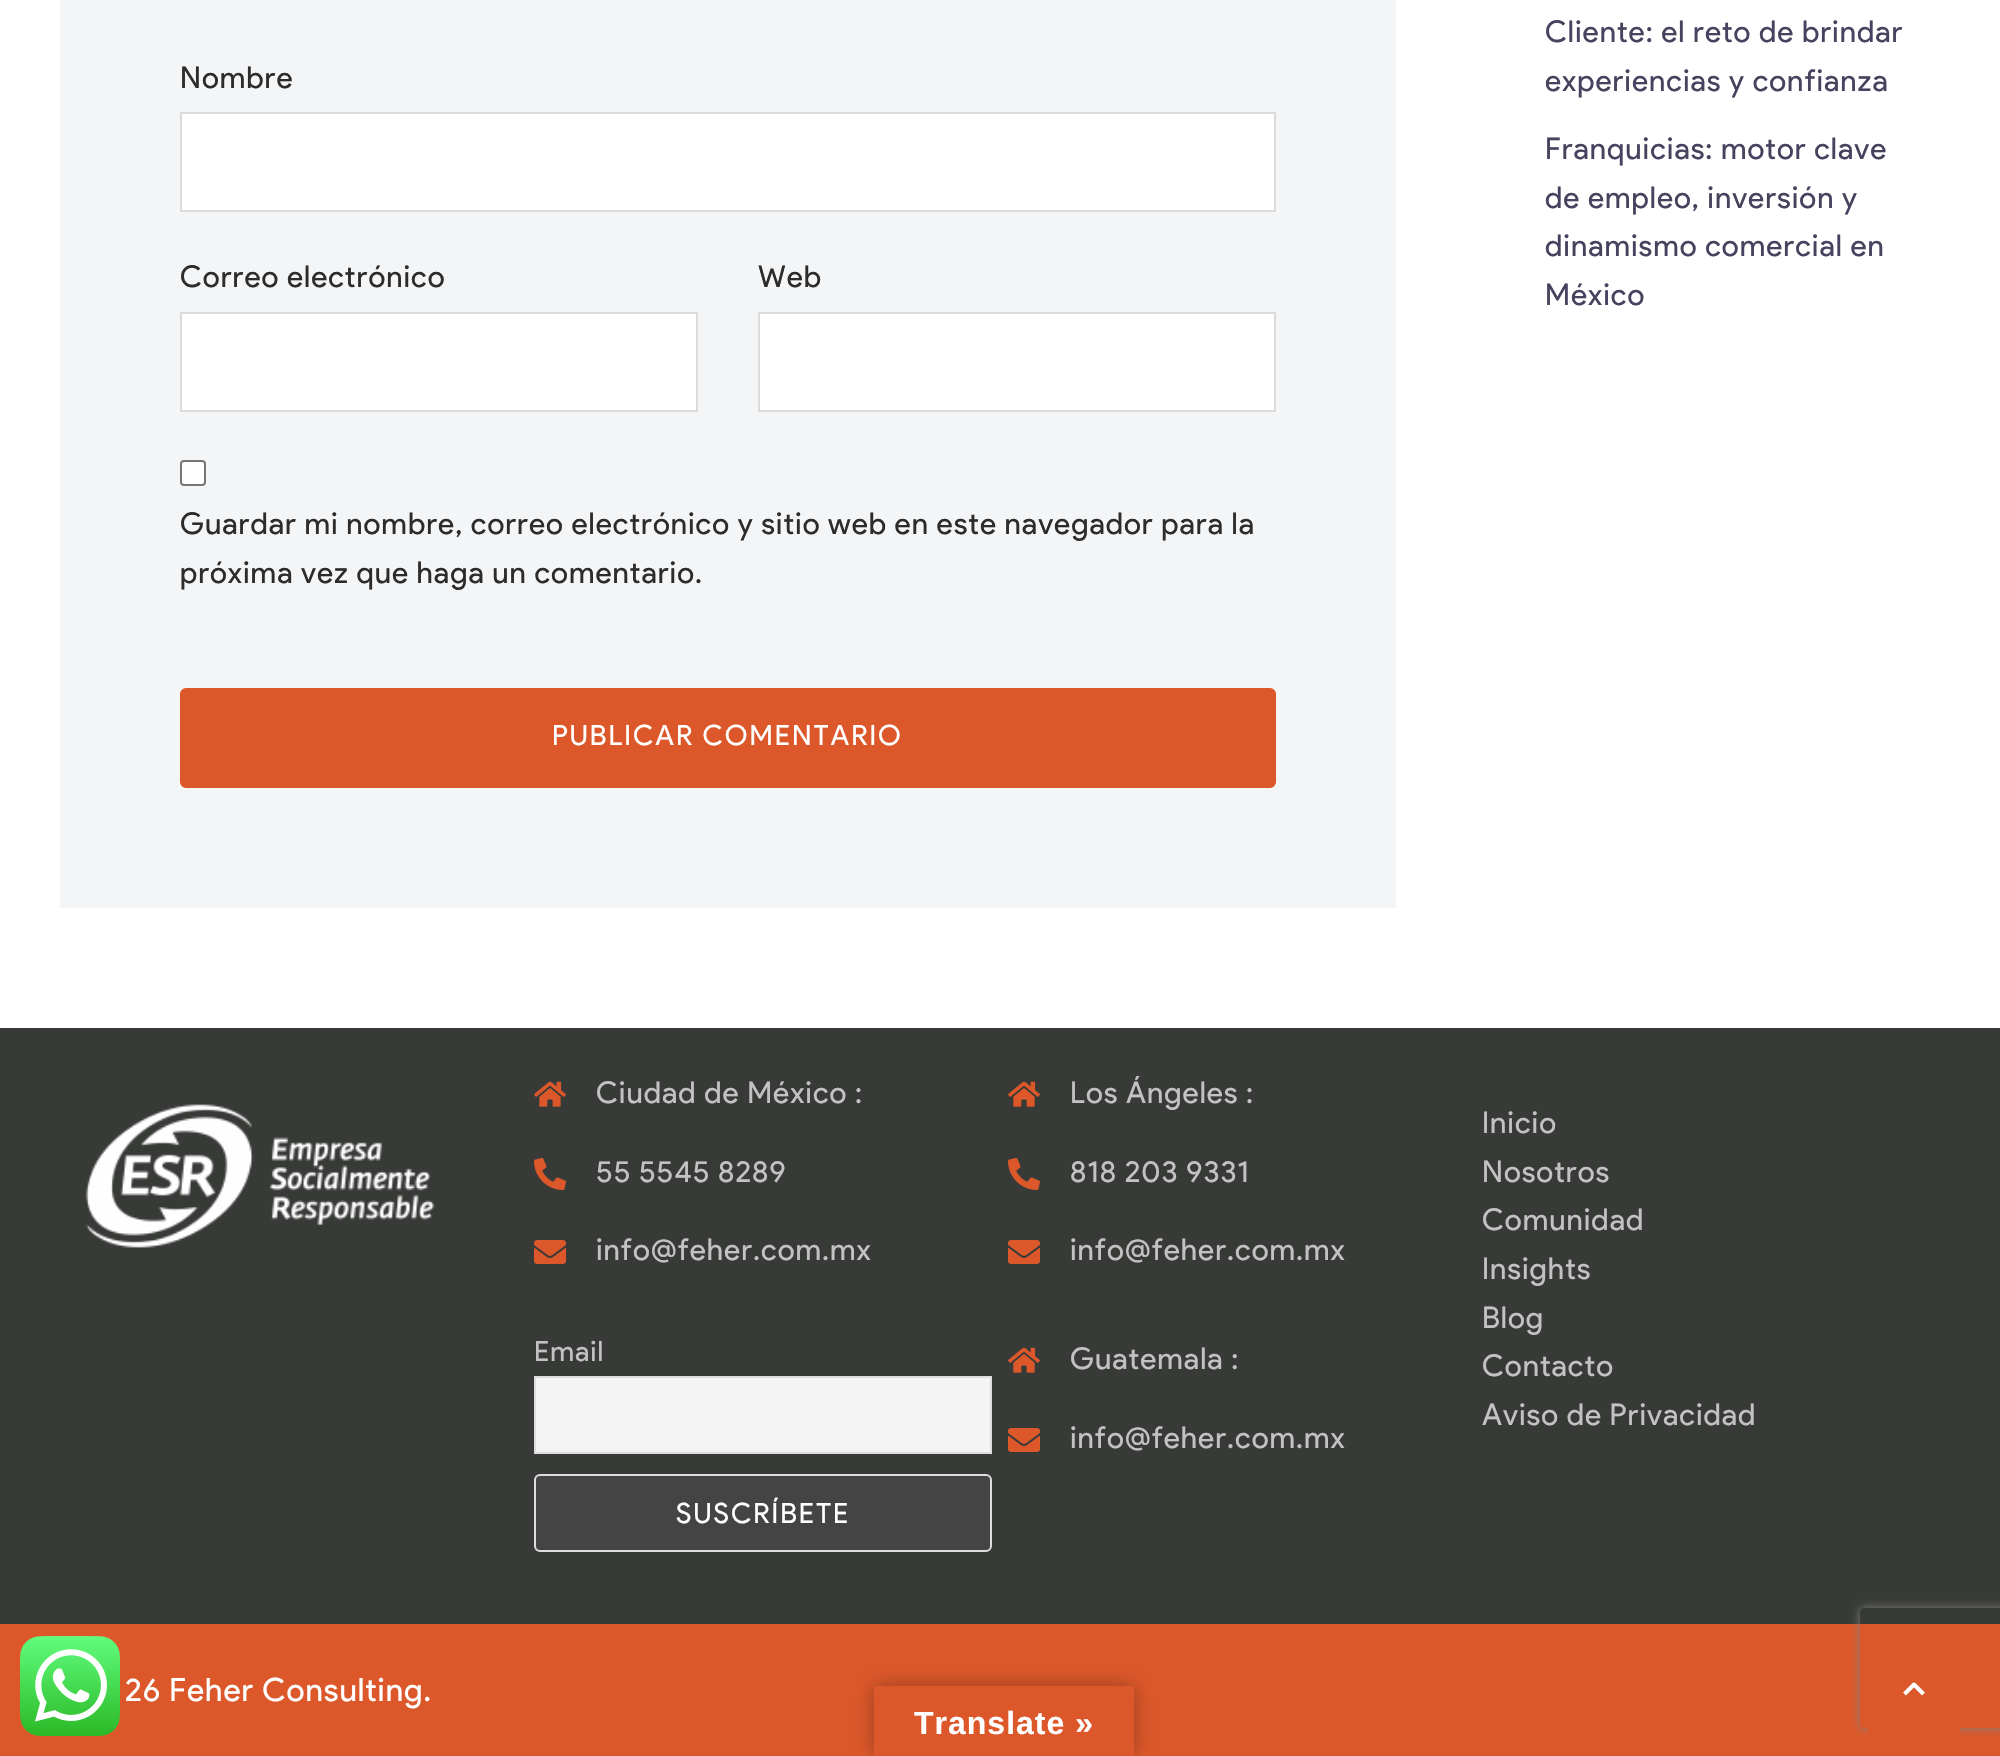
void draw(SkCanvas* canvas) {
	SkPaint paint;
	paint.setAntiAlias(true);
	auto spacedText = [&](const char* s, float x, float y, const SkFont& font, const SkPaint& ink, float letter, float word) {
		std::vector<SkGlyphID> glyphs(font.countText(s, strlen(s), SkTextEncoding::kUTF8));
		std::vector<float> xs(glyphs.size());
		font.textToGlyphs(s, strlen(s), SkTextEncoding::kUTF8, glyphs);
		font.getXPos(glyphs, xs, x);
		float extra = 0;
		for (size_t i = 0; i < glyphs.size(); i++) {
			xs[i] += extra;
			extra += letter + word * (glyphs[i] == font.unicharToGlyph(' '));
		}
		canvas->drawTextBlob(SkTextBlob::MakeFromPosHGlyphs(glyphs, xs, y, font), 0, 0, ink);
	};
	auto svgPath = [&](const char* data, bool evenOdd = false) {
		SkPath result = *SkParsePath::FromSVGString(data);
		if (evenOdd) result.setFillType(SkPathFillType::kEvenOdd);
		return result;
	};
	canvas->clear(0xffffffff);
	paint.setColor(0xffdc582a);
	canvas->drawRect(SkRect::MakeXYWH(0, 1624, 2000, 132), paint);
	canvas->drawImageRect(SkImages::DeferredFromEncodedData(SkData::MakeFromFileName("img1.png")), SkRect::MakeXYWH(20, 1636, 100, 100), SkSamplingOptions());
	paint.setColor(0xfff4f5f7);
	canvas->drawRect(SkRect::MakeXYWH(60, 0, 1336, 908), paint);
	SkFont f1(fontMgr->matchFamilyStyle("Product Sans", SkFontStyle::Normal()), 30);
	f1.setSubpixel(true);
	paint.setColor(0xff2c2c2c);
	spacedText("Nombre", 180, 88, f1, paint, 1, 0);
	paint.setColor(0xffffffff);
	canvas->drawRect(SkRect::MakeXYWH(181, 113, 1094, 98), paint);
	paint.setStroke(true);
	paint.setStrokeWidth(2);
	paint.setColor(0xffdbdbdb);
	canvas->drawRect(SkRect::MakeXYWH(181, 113, 1094, 98), paint);
	paint.setStroke(false);
	paint.setColor(0xff2c2c2c);
	spacedText("Correo electrónico", 180, 287, f1, paint, 1, 0);
	paint.setColor(0xffffffff);
	canvas->drawRect(SkRect::MakeXYWH(181, 313, 516, 98), paint);
	paint.setStroke(true);
	paint.setColor(0xffdbdbdb);
	canvas->drawRect(SkRect::MakeXYWH(181, 313, 516, 98), paint);
	paint.setStroke(false);
	paint.setColor(0xff2c2c2c);
	spacedText("Web", 758, 287, f1, paint, 1, 0);
	paint.setColor(0xffffffff);
	canvas->drawRect(SkRect::MakeXYWH(759, 313, 516, 98), paint);
	paint.setStroke(true);
	paint.setColor(0xffdbdbdb);
	canvas->drawRect(SkRect::MakeXYWH(759, 313, 516, 98), paint);
	paint.setStroke(false);
	paint.setColor(0xffffffff);
	canvas->drawRoundRect(SkRect::MakeXYWH(181, 461, 24, 24), 3, 3, paint);
	paint.setStroke(true);
	paint.setColor(0xff767676);
	canvas->drawRoundRect(SkRect::MakeXYWH(181, 461, 24, 24), 3, 3, paint);
	paint.setStroke(false);
	paint.setColor(0xff2c2c2c);
	spacedText("Guardar mi nombre, correo electrónico y sitio web en este navegador para la", 180, 534, f1, paint, 1, 0);
	spacedText("próxima vez que haga un comentario.", 180, 583, f1, paint, 1, 0);
	paint.setColor(0xffdc582a);
	canvas->drawRoundRect(SkRect::MakeXYWH(181, 689, 1094, 98), 5, 5, paint);
	paint.setStroke(true);
	canvas->drawRoundRect(SkRect::MakeXYWH(181, 689, 1094, 98), 5, 5, paint);
	SkFont f2(fontMgr->matchFamilyStyle("Product Sans", SkFontStyle::Normal()), 28);
	f2.setSubpixel(true);
	paint.setStroke(false);
	paint.setColor(0xffffffff);
	spacedText("PUBLICAR COMENTARIO", 552, 745, f2, paint, 2, 0);
	paint.setColor(0xff47425d);
	spacedText("Cliente: el reto de brindar", 1545, 42, f1, paint, 1, 0);
	spacedText("experiencias y confianza", 1545, 91, f1, paint, 1, 0);
	spacedText("Franquicias: motor clave", 1545, 159, f1, paint, 1, 0);
	spacedText("de empleo, inversión y", 1545, 208, f1, paint, 1, 0);
	spacedText("dinamismo comercial en", 1545, 256, f1, paint, 1, 0);
	spacedText("México", 1545, 305, f1, paint, 1, 0);
	paint.setColor(0xff373a36);
	canvas->drawRect(SkRect::MakeXYWH(0, 1028, 2000, 596), paint);
	canvas->drawImageRect(SkImages::DeferredFromEncodedData(SkData::MakeFromFileName("img2.png")), SkRect::MakeXYWH(85, 1104, 350, 144), SkSamplingOptions());
	canvas->drawImageRect(SkImages::DeferredFromEncodedData(SkData::MakeFromFileName("img3.png")), SkRect::MakeXYWH(534, 1081, 32, 26), SkSamplingOptions());
	paint.setColor(0xffc2c2c2);
	spacedText("Ciudad de México :", 596, 1103, f1, paint, 1, 0);
	canvas->drawImageRect(SkImages::DeferredFromEncodedData(SkData::MakeFromFileName("img4.png")), SkRect::MakeXYWH(534, 1158, 32, 32), SkSamplingOptions());
	spacedText("55 5545 8289", 596, 1182, f1, paint, 1, 0);
	canvas->drawImageRect(SkImages::DeferredFromEncodedData(SkData::MakeFromFileName("img5.png")), SkRect::MakeXYWH(534, 1240, 32, 24), SkSamplingOptions());
	spacedText("info@feher.com.mx", 596, 1260, f1, paint, 1, 0);
	spacedText("Email", 534, 1361, f2, paint, 1, 0);
	paint.setColor(0xfff4f4f4);
	canvas->drawRect(SkRect::MakeXYWH(535, 1377, 456, 76), paint);
	paint.setStroke(true);
	paint.setColor(0xffdddddd);
	canvas->drawRect(SkRect::MakeXYWH(535, 1377, 456, 76), paint);
	paint.setStroke(false);
	paint.setColor(0xff444444);
	canvas->drawRoundRect(SkRect::MakeXYWH(535, 1475, 456, 76), 5, 5, paint);
	paint.setStroke(true);
	paint.setColor(0xffdddddd);
	canvas->drawRoundRect(SkRect::MakeXYWH(535, 1475, 456, 76), 5, 5, paint);
	paint.setStroke(false);
	paint.setColor(0xffffffff);
	spacedText("SUSCRÍBETE", 676, 1523, f2, paint, 2, 0);
	canvas->drawImageRect(SkImages::DeferredFromEncodedData(SkData::MakeFromFileName("img3.png")), SkRect::MakeXYWH(1008, 1081, 32, 26), SkSamplingOptions());
	paint.setColor(0xffc2c2c2);
	spacedText("Los Ángeles :", 1070, 1103, f1, paint, 1, 0);
	canvas->drawImageRect(SkImages::DeferredFromEncodedData(SkData::MakeFromFileName("img4.png")), SkRect::MakeXYWH(1008, 1158, 32, 32), SkSamplingOptions());
	spacedText("818 203 9331", 1070, 1182, f1, paint, 1, 0);
	canvas->drawImageRect(SkImages::DeferredFromEncodedData(SkData::MakeFromFileName("img5.png")), SkRect::MakeXYWH(1008, 1240, 32, 24), SkSamplingOptions());
	spacedText("info@feher.com.mx", 1070, 1260, f1, paint, 1, 0);
	canvas->drawImageRect(SkImages::DeferredFromEncodedData(SkData::MakeFromFileName("img3.png")), SkRect::MakeXYWH(1008, 1347, 32, 26), SkSamplingOptions());
	spacedText("Guatemala :", 1070, 1369, f1, paint, 1, 0);
	canvas->drawImageRect(SkImages::DeferredFromEncodedData(SkData::MakeFromFileName("img5.png")), SkRect::MakeXYWH(1008, 1428, 32, 24), SkSamplingOptions());
	spacedText("info@feher.com.mx", 1070, 1448, f1, paint, 1, 0);
	spacedText("Inicio", 1482, 1133, f1, paint, 1, 0);
	spacedText("Nosotros", 1482, 1182, f1, paint, 1, 0);
	spacedText("Comunidad", 1482, 1230, f1, paint, 1, 0);
	spacedText("Insights", 1482, 1279, f1, paint, 1, 0);
	spacedText("Blog", 1482, 1328, f1, paint, 1, 0);
	spacedText("Contacto", 1482, 1376, f1, paint, 1, 0);
	spacedText("Aviso de Privacidad", 1482, 1425, f1, paint, 1, 0);
	SkFont f3(fontMgr->matchFamilyStyle("Product Sans", SkFontStyle::Normal()), 32);
	f3.setSubpixel(true);
	paint.setColor(0xffffffff);
	spacedText("26 Feher Consulting.", 125, 1701, f3, paint, 1, 0);
	canvas->save();
	canvas->clipPath(svgPath("M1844 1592H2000V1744H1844ZM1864 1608H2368C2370 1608 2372 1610 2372 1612V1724C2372 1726 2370 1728 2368 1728H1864C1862 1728 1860 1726 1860 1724V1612C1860 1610 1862 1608 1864 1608Z", true), true);
	paint.setColor(0xff808080);
	paint.setMaskFilter(SkMaskFilter::MakeBlur(kNormal_SkBlurStyle, 5));
	canvas->drawRoundRect(SkRect::MakeXYWH(1860, 1608, 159, 120), 4, 4, paint);
	paint.setMaskFilter(nullptr);
	canvas->restore();
	canvas->save();
	canvas->clipPath(svgPath("M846 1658H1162V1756H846ZM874 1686H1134V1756H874Z", true), true);
	paint.setColor(0x4d000000);
	paint.setMaskFilter(SkMaskFilter::MakeBlur(kNormal_SkBlurStyle, 9));
	canvas->drawRect(SkRect::MakeXYWH(874, 1686, 260, 70), paint);
	paint.setMaskFilter(nullptr);
	canvas->restore();
	SkFont f4(fontMgr->matchFamilyStyle("Liberation Sans", SkFontStyle::Bold()), 32);
	f4.setSubpixel(true);
	paint.setColor(0xffffffff);
	spacedText("Translate »", 914, 1734, f4, paint, 1, 0);
	paint.setColor(0xffdc582a);
	canvas->drawRoundRect(SkRect::MakeXYWH(1868, 1644, 92, 92), 4, 4, paint);
	paint.setStroke(true);
	paint.setStrokeWidth(4);
	paint.setStrokeJoin(SkPaint::kRound_Join);
	paint.setColor(0xffffffff);
	canvas->drawPath(svgPath("M1904.5 1694L1914 1684.5L1923.5 1694"), paint);
}
